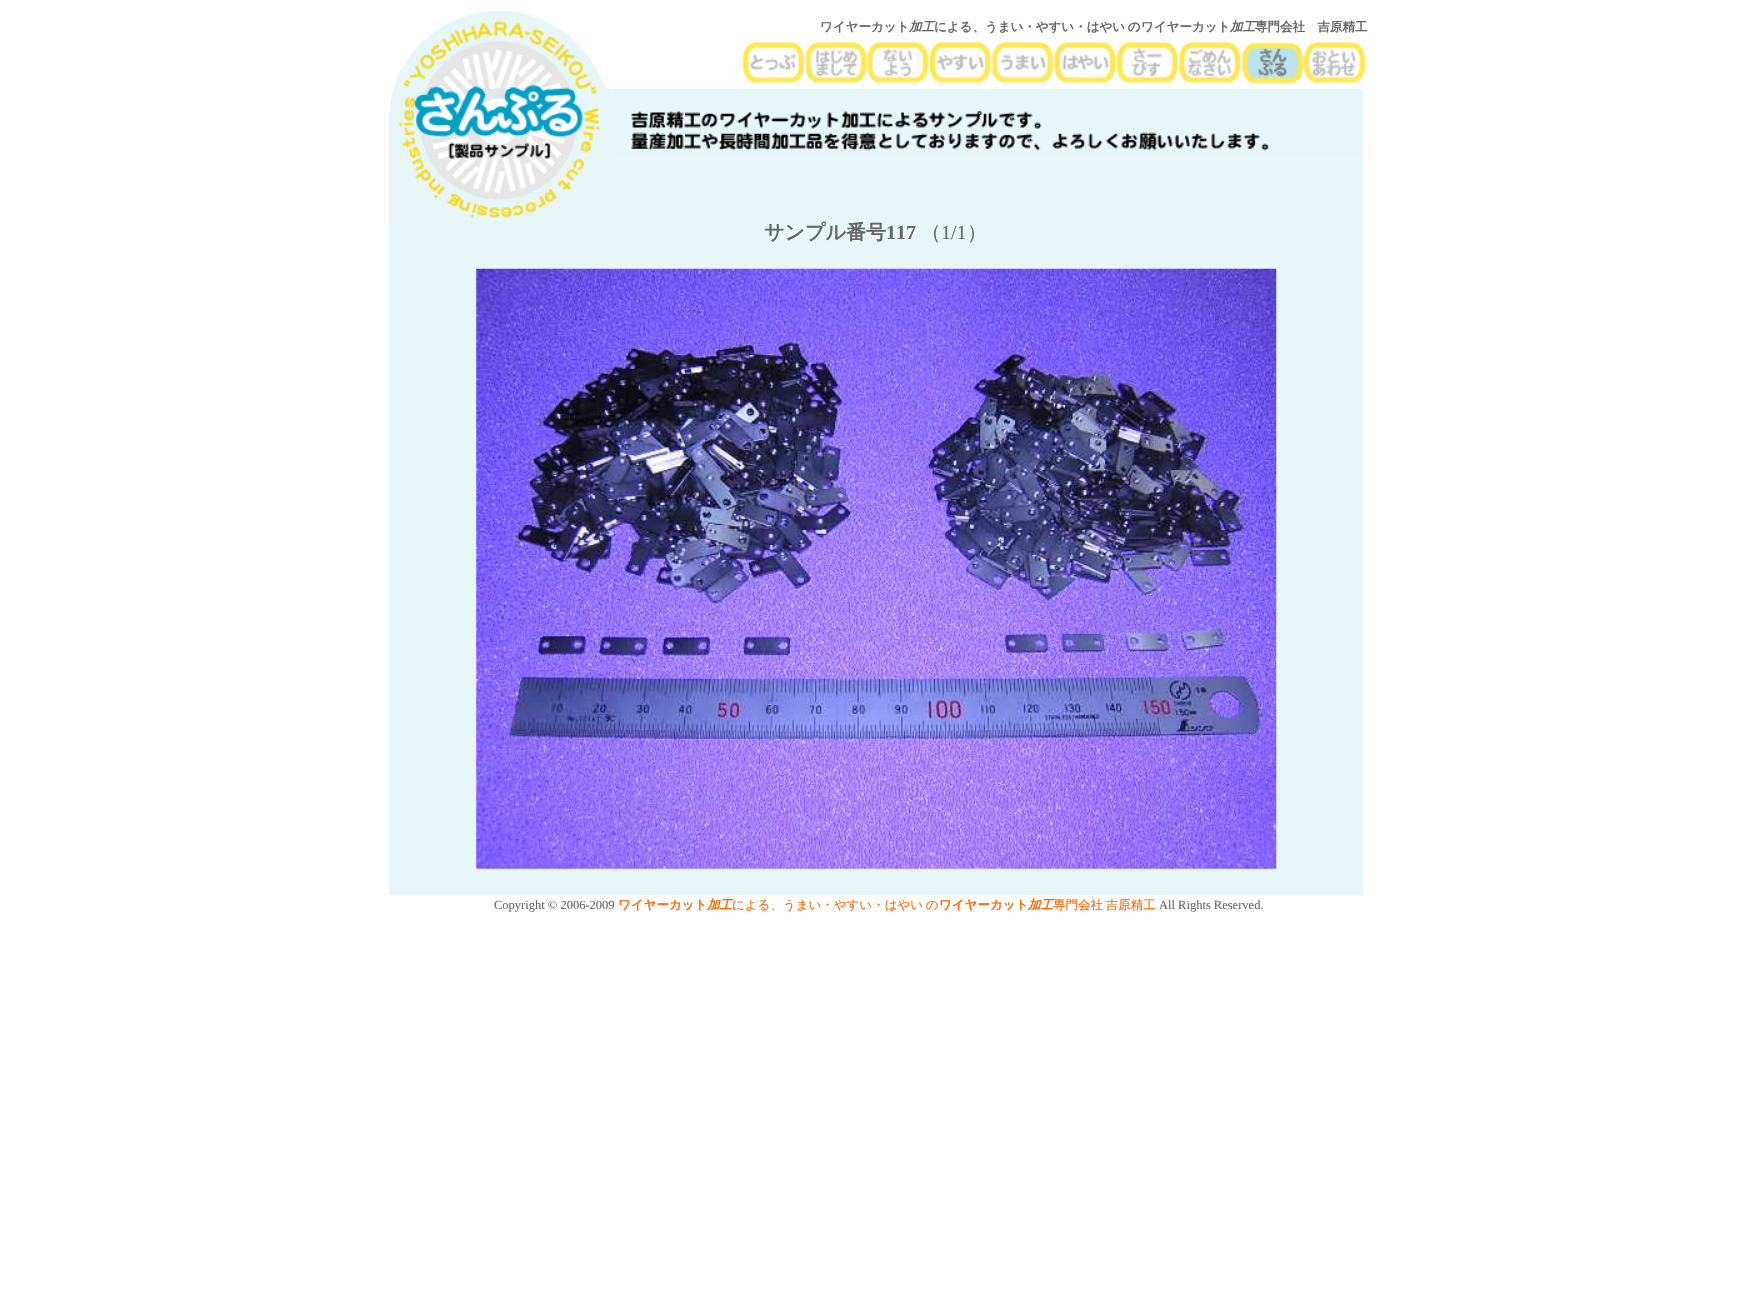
void draw(SkCanvas* canvas) {
	SkPaint paint;
	paint.setAntiAlias(true);
	auto spacedText = [&](const char* s, float x, float y, const SkFont& font, const SkPaint& ink, float letter, float word) {
		std::vector<SkGlyphID> glyphs(font.countText(s, strlen(s), SkTextEncoding::kUTF8));
		std::vector<float> xs(glyphs.size());
		font.textToGlyphs(s, strlen(s), SkTextEncoding::kUTF8, glyphs);
		font.getXPos(glyphs, xs, x);
		float extra = 0;
		for (size_t i = 0; i < glyphs.size(); i++) {
			xs[i] += extra;
			extra += letter + word * (glyphs[i] == font.unicharToGlyph(' '));
		}
		canvas->drawTextBlob(SkTextBlob::MakeFromPosHGlyphs(glyphs, xs, y, font), 0, 0, ink);
	};
	canvas->clear(0xffffffff);
	canvas->drawImageRect(SkImages::DeferredFromEncodedData(SkData::MakeFromFileName("img1.png")), SkRect::MakeXYWH(388, 11, 224, 209), SkSamplingOptions());
	SkFont f1(fontMgr->matchFamilyStyle("WenQuanYi Zen Hei", SkFontStyle::Bold()), 12.5);
	f1.setSubpixel(true);
	paint.setColor(0xff666666);
	canvas->drawString("ワイヤーカット", 820, 31, f1, paint);
	SkFont f2(fontMgr->matchFamilyStyle("WenQuanYi Zen Hei", SkFontStyle::BoldItalic()), 12.5);
	f2.setSubpixel(true);
	canvas->drawString("加工", 909, 31, f2, paint);
	spacedText("による、うまい・やすい・はやい の", 934, 31, f1, paint, 0, -1);
	canvas->drawString("ワイヤーカット", 1141, 31, f1, paint);
	canvas->drawString("加工", 1230, 31, f2, paint);
	canvas->drawString("専門会社　吉原精工", 1255, 31, f1, paint);
	canvas->drawImageRect(SkImages::DeferredFromEncodedData(SkData::MakeFromFileName("img2.png")), SkRect::MakeXYWH(742, 42, 65, 41), SkSamplingOptions());
	canvas->drawImageRect(SkImages::DeferredFromEncodedData(SkData::MakeFromFileName("img3.png")), SkRect::MakeXYWH(806, 42, 62, 41), SkSamplingOptions());
	canvas->drawImageRect(SkImages::DeferredFromEncodedData(SkData::MakeFromFileName("img4.png")), SkRect::MakeXYWH(867, 42, 62, 41), SkSamplingOptions());
	canvas->drawImageRect(SkImages::DeferredFromEncodedData(SkData::MakeFromFileName("img5.png")), SkRect::MakeXYWH(928, 42, 65, 41), SkSamplingOptions());
	canvas->drawImageRect(SkImages::DeferredFromEncodedData(SkData::MakeFromFileName("img6.png")), SkRect::MakeXYWH(992, 42, 63, 41), SkSamplingOptions());
	canvas->drawImageRect(SkImages::DeferredFromEncodedData(SkData::MakeFromFileName("img7.png")), SkRect::MakeXYWH(1055, 42, 62, 41), SkSamplingOptions());
	canvas->drawImageRect(SkImages::DeferredFromEncodedData(SkData::MakeFromFileName("img8.png")), SkRect::MakeXYWH(1116, 42, 64, 41), SkSamplingOptions());
	canvas->drawImageRect(SkImages::DeferredFromEncodedData(SkData::MakeFromFileName("img9.png")), SkRect::MakeXYWH(1180, 42, 61, 41), SkSamplingOptions());
	canvas->drawImageRect(SkImages::DeferredFromEncodedData(SkData::MakeFromFileName("img10.png")), SkRect::MakeXYWH(1241, 42, 63, 42), SkSamplingOptions());
	canvas->drawImageRect(SkImages::DeferredFromEncodedData(SkData::MakeFromFileName("img11.png")), SkRect::MakeXYWH(1303, 42, 63, 41), SkSamplingOptions());
	canvas->drawImageRect(SkImages::DeferredFromEncodedData(SkData::MakeFromFileName("img12.png")), SkRect::MakeXYWH(611, 83, 752, 76), SkSamplingOptions());
	paint.setColor(0xffe6f6f9);
	canvas->drawRect(SkRect::MakeXYWH(611, 159, 108, 61), paint);
	canvas->drawRect(SkRect::MakeXYWH(719, 159, 644, 61), paint);
	canvas->drawRect(SkRect::MakeXYWH(389, 220, 974, 675), paint);
	SkFont f3(fontMgr->matchFamilyStyle("WenQuanYi Zen Hei", SkFontStyle::Bold()), 20);
	f3.setSubpixel(true);
	paint.setColor(0xff666666);
	canvas->drawString("サンプル番号", 764, 239, f3, paint);
	SkFont f4(fontMgr->matchFamilyStyle("Liberation Serif", SkFontStyle::Bold()), 20);
	f4.setSubpixel(true);
	canvas->drawString("117", 886, 239, f4, paint);
	SkFont f5(fontMgr->matchFamilyStyle("WenQuanYi Zen Hei", SkFontStyle(500, SkFontStyle::kNormal_Width, SkFontStyle::kUpright_Slant)), 20);
	f5.setSubpixel(true);
	canvas->drawString("（", 921, 239, f5, paint);
	SkFont f6(fontMgr->matchFamilyStyle("Liberation Serif", SkFontStyle::Normal()), 20);
	f6.setSubpixel(true);
	canvas->drawString("1/1", 941, 239, f6, paint);
	canvas->drawString("）", 967, 239, f5, paint);
	canvas->drawImageRect(SkImages::DeferredFromEncodedData(SkData::MakeFromFileName("img13.png")), SkRect::MakeXYWH(476, 268, 801, 601), SkSamplingOptions());
	SkFont f7(fontMgr->matchFamilyStyle("Liberation Serif", SkFontStyle::Normal()), 12.5);
	f7.setSubpixel(true);
	canvas->drawString("Copyright © 2006-2009", 494, 909, f7, paint);
	paint.setColor(0xffff6600);
	canvas->drawString("ワイヤーカット", 618, 909, f1, paint);
	canvas->drawString("加工", 707, 909, f2, paint);
	SkFont f8(fontMgr->matchFamilyStyle("WenQuanYi Zen Hei", SkFontStyle(500, SkFontStyle::kNormal_Width, SkFontStyle::kUpright_Slant)), 12.5);
	f8.setSubpixel(true);
	spacedText("による、うまい・やすい・はやい の", 732, 909, f8, paint, 0, -1);
	canvas->drawString("ワイヤーカット", 939, 909, f1, paint);
	canvas->drawString("加工", 1028, 909, f2, paint);
	spacedText("専門会社 吉原精工", 1053, 909, f8, paint, 0, -1);
	paint.setColor(0xff666666);
	canvas->drawString("All Rights Reserved.", 1159, 909, f7, paint);
}
